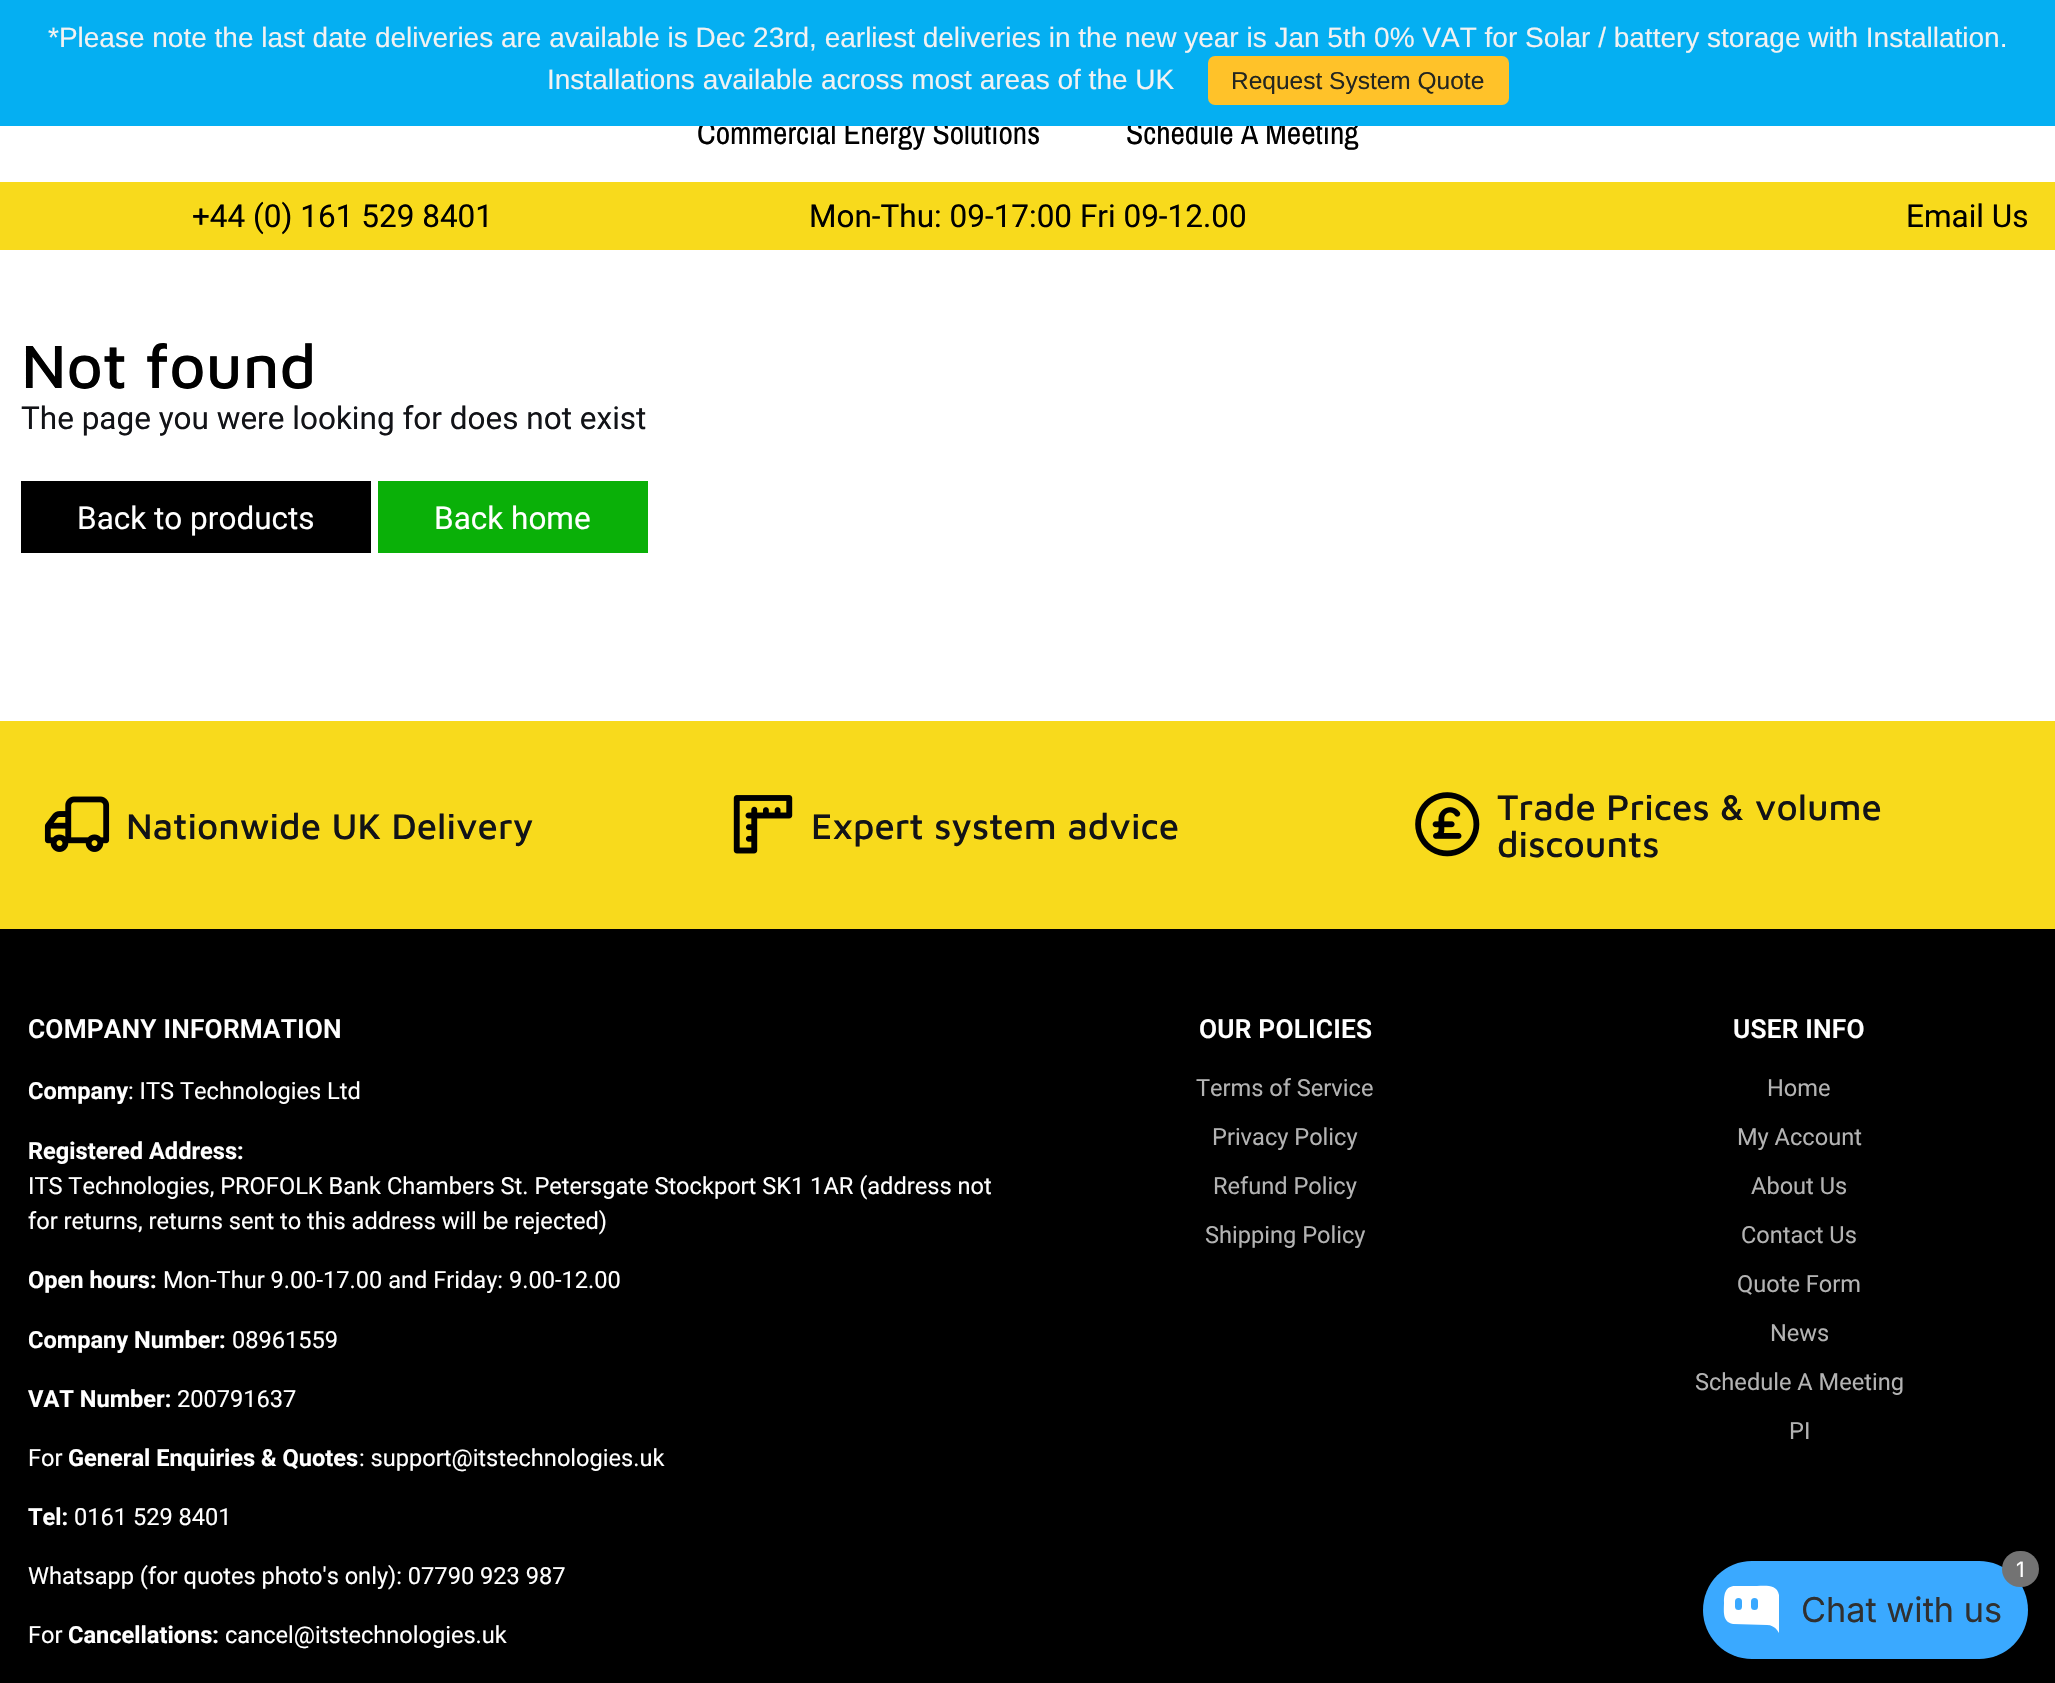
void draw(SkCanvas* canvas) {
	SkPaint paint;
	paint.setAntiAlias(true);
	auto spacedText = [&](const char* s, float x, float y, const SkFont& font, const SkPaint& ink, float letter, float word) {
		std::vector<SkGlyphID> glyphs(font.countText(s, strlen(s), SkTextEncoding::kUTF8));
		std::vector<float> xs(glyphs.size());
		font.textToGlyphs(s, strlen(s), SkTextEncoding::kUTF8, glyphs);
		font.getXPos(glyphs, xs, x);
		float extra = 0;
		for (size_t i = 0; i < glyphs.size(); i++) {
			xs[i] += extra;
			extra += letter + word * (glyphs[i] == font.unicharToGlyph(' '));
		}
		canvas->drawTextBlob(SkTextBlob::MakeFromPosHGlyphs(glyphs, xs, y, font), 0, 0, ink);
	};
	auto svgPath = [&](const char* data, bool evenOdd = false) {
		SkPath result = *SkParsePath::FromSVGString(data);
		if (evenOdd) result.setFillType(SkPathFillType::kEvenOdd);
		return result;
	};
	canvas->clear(0xffffffff);
	SkFont f1(fontMgr->matchFamilyStyle("Archivo Narrow", SkFontStyle::Normal()), 31.5);
	f1.setSubpixel(true);
	paint.setColor(0xff000000);
	canvas->drawString("Commercial Energy Solutions", 697, 144, f1, paint);
	canvas->drawString("Schedule A Meeting", 1126, 144, f1, paint);
	paint.setColor(0xff05aff2);
	canvas->drawRect(SkRect::MakeXYWH(0, 0, 2055, 126), paint);
	SkFont f2(fontMgr->matchFamilyStyle("Liberation Sans", SkFontStyle::Normal()), 28);
	f2.setSubpixel(true);
	paint.setColor(0xfff2f2f2);
	canvas->drawString("*Please note the last date deliveries are available is Dec 23rd, earliest deliveries in the new year is Jan 5th 0% VAT for Solar / battery storage with Installation.", 48, 47, f2, paint);
	canvas->drawString("Installations available across most areas of the UK", 547, 89, f2, paint);
	paint.setColor(0xffffc229);
	canvas->drawRoundRect(SkRect::MakeXYWH(1208, 56, 301, 49), 7, 7, paint);
	SkFont f3(fontMgr->matchFamilyStyle("Liberation Sans", SkFontStyle::Normal()), 24.5);
	f3.setSubpixel(true);
	paint.setColor(0xff242620);
	canvas->drawString("Request System Quote", 1231, 89, f3, paint);
	paint.setColor(0xfff8da1c);
	canvas->drawRect(SkRect::MakeXYWH(0, 182, 2055, 68), paint);
	SkFont f4(fontMgr->matchFamilyStyle("Roboto", SkFontStyle::Normal()), 31.5);
	f4.setSubpixel(true);
	paint.setColor(0xff000000);
	canvas->drawString("+44 (0) 161 529 8401", 192, 227, f4, paint);
	canvas->drawString("Mon-Thu: 09-17:00 Fri 09-12.00", 809, 227, f4, paint);
	canvas->drawString("Email Us", 1906, 227, f4, paint);
	SkFont f5(fontMgr->matchFamilyStyle("Maven Pro", SkFontStyle(500, SkFontStyle::kNormal_Width, SkFontStyle::kUpright_Slant)), 63);
	f5.setSubpixel(true);
	canvas->drawString("Not found", 21, 388, f5, paint);
	paint.setColor(0xff121317);
	canvas->drawString("The page you were looking for does not exist", 21, 429, f4, paint);
	paint.setColor(0xff000000);
	canvas->drawRect(SkRect::MakeXYWH(21, 481, 350, 72), paint);
	paint.setColor(0xffffffff);
	canvas->drawString("Back to products", 77, 529, f4, paint);
	paint.setColor(0xff0ab008);
	canvas->drawRect(SkRect::MakeXYWH(378, 481, 270, 72), paint);
	paint.setColor(0xffffffff);
	canvas->drawString("Back home", 434, 529, f4, paint);
	paint.setColor(0xfff8da1c);
	canvas->drawRect(SkRect::MakeXYWH(0, 721, 2055, 208), paint);
	canvas->drawImageRect(SkImages::DeferredFromEncodedData(SkData::MakeFromFileName("img1.png")), SkRect::MakeXYWH(44, 796, 66, 56), SkSamplingOptions());
	SkFont f6(fontMgr->matchFamilyStyle("Maven Pro", SkFontStyle(500, SkFontStyle::kNormal_Width, SkFontStyle::kUpright_Slant)), 36.8);
	f6.setSubpixel(true);
	paint.setColor(0xff121317);
	canvas->drawString("Nationwide UK Delivery", 126, 839, f6, paint);
	canvas->drawImageRect(SkImages::DeferredFromEncodedData(SkData::MakeFromFileName("img2.png")), SkRect::MakeXYWH(733, 795, 60, 59), SkSamplingOptions());
	canvas->drawString("Expert system advice", 811, 839, f6, paint);
	canvas->drawImageRect(SkImages::DeferredFromEncodedData(SkData::MakeFromFileName("img3.png")), SkRect::MakeXYWH(1415, 792, 65, 65), SkSamplingOptions());
	canvas->drawString("Trade Prices & volume", 1497, 820, f6, paint);
	canvas->drawString("discounts", 1497, 857, f6, paint);
	paint.setColor(0xff000000);
	canvas->drawRect(SkRect::MakeXYWH(0, 929, 2055, 754), paint);
	SkFont f7(fontMgr->matchFamilyStyle("Roboto", SkFontStyle(600, SkFontStyle::kNormal_Width, SkFontStyle::kUpright_Slant)), 26.25);
	f7.setSubpixel(true);
	paint.setColor(0xffffffff);
	spacedText("COMPANY INFORMATION", 28, 1038, f7, paint, 0.2, 0);
	SkFont f8(fontMgr->matchFamilyStyle("Roboto", SkFontStyle::Bold()), 23.6);
	f8.setSubpixel(true);
	canvas->drawString("Company", 28, 1099, f8, paint);
	SkFont f9(fontMgr->matchFamilyStyle("Roboto", SkFontStyle::Normal()), 23.6);
	f9.setSubpixel(true);
	canvas->drawString(": ITS Technologies Ltd", 128, 1099, f9, paint);
	canvas->drawString("Registered Address:", 28, 1159, f8, paint);
	canvas->drawString("ITS Technologies, PROFOLK Bank Chambers St. Petersgate Stockport SK1 1AR (address not", 28, 1194, f9, paint);
	canvas->drawString("for returns, returns sent to this address will be rejected)", 28, 1229, f9, paint);
	canvas->drawString("Open hours:", 28, 1288, f8, paint);
	canvas->drawString("Mon-Thur 9.00-17.00 and Friday: 9.00-12.00", 163, 1288, f9, paint);
	canvas->drawString("Company Number:", 28, 1348, f8, paint);
	canvas->drawString("08961559", 232, 1348, f9, paint);
	canvas->drawString("VAT Number:", 28, 1407, f8, paint);
	canvas->drawString("200791637", 177, 1407, f9, paint);
	canvas->drawString("For", 28, 1466, f9, paint);
	canvas->drawString("General Enquiries & Quotes", 68, 1466, f8, paint);
	canvas->drawString(": support@itstechnologies.uk", 359, 1466, f9, paint);
	canvas->drawString("Tel:", 28, 1525, f8, paint);
	canvas->drawString("0161 529 8401", 74, 1525, f9, paint);
	canvas->drawString("Whatsapp (for quotes photo's only): 07790 923 987", 28, 1584, f9, paint);
	canvas->drawString("For", 28, 1643, f9, paint);
	canvas->drawString("Cancellations:", 68, 1643, f8, paint);
	canvas->drawString("cancel@itstechnologies.uk", 225, 1643, f9, paint);
	spacedText("OUR POLICIES", 1199, 1038, f7, paint, 0.2, 0);
	paint.setColor(0xffb3b3b3);
	canvas->drawString("Terms of Service", 1196, 1096, f9, paint);
	canvas->drawString("Privacy Policy", 1212, 1145, f9, paint);
	canvas->drawString("Refund Policy", 1213, 1194, f9, paint);
	canvas->drawString("Shipping Policy", 1205, 1243, f9, paint);
	paint.setColor(0xffffffff);
	spacedText("USER INFO", 1733, 1038, f7, paint, 0.2, 0);
	paint.setColor(0xffb3b3b3);
	canvas->drawString("Home", 1767, 1096, f9, paint);
	canvas->drawString("My Account", 1737, 1145, f9, paint);
	canvas->drawString("About Us", 1751, 1194, f9, paint);
	canvas->drawString("Contact Us", 1741, 1243, f9, paint);
	canvas->drawString("Quote Form", 1737, 1292, f9, paint);
	canvas->drawString("News", 1770, 1341, f9, paint);
	canvas->drawString("Schedule A Meeting", 1695, 1390, f9, paint);
	canvas->drawString("PI", 1789, 1439, f9, paint);
	paint.setColor(0xff3aa9ff);
	canvas->drawRoundRect(SkRect::MakeXYWH(1703, 1561, 325, 98), 49, 49, paint);
	paint.setColor(0xff737373);
	canvas->drawRoundRect(SkRect::MakeXYWH(2002, 1551, 37, 36), 18, 18, paint);
	SkFont f10(fontMgr->matchFamilyStyle("Inter", SkFontStyle::Normal()), 21);
	f10.setSubpixel(true);
	paint.setColor(0xffffffff);
	canvas->drawString("1", 2016, 1577, f10, paint);
	canvas->drawPath(svgPath("M1735 1586C1725 1586 1724 1595 1724 1602C1724 1611 1722 1622 1733 1624L1767 1625C1771 1625 1775 1627 1777 1630L1779 1633V1595C1777 1584 1765 1586 1757 1586Z", true), paint);
	paint.setColor(0xff3aa9ff);
	canvas->drawRoundRect(SkRect::MakeXYWH(1735, 1598, 7, 12), 3.5, 3.5, paint);
	canvas->drawRoundRect(SkRect::MakeXYWH(1751, 1598, 7, 12), 3.5, 3.5, paint);
	SkFont f11(fontMgr->matchFamilyStyle("Inter", SkFontStyle::Normal()), 34.25);
	f11.setSubpixel(true);
	paint.setColor(0xff303030);
	canvas->drawString("Chat with us", 1801, 1622, f11, paint);
}
